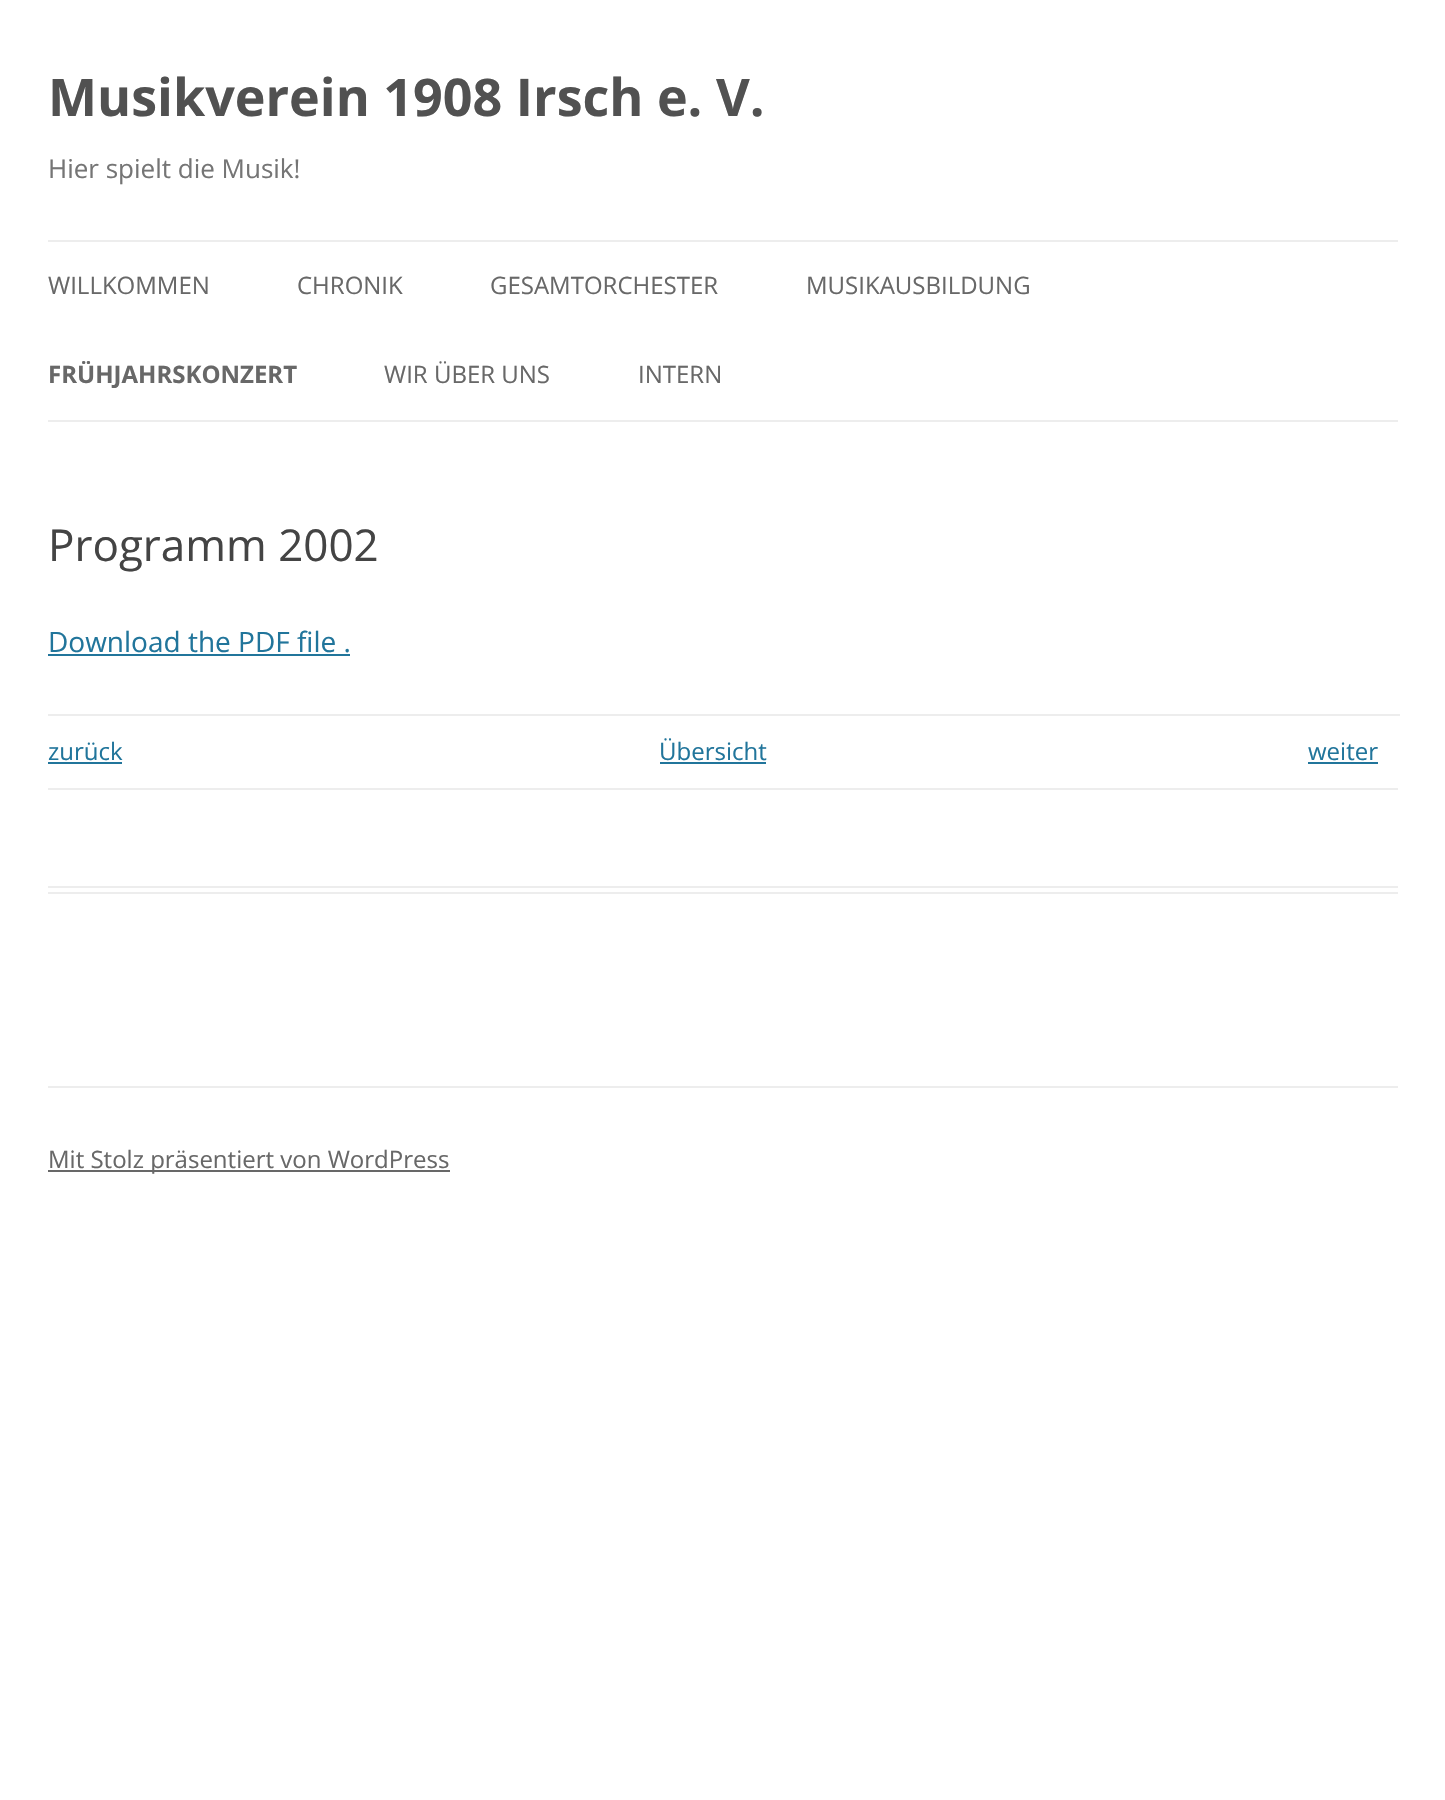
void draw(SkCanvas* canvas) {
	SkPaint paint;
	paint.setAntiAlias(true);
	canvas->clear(0xffffffff);
	SkFont f1(fontMgr->matchFamilyStyle("Open Sans", SkFontStyle::Bold()), 52);
	f1.setSubpixel(true);
	paint.setColor(0xff515151);
	canvas->drawString("Musikverein 1908 Irsch e. V.", 48, 116, f1, paint);
	SkFont f2(fontMgr->matchFamilyStyle("Open Sans", SkFontStyle::Normal()), 26);
	f2.setSubpixel(true);
	paint.setColor(0xff757575);
	canvas->drawString("Hier spielt die Musik!", 48, 178, f2, paint);
	paint.setColor(0xffededed);
	canvas->drawRect(SkRect::MakeXYWH(48, 240, 1350, 2), paint);
	canvas->drawRect(SkRect::MakeXYWH(48, 420, 1350, 2), paint);
	SkFont f3(fontMgr->matchFamilyStyle("Open Sans", SkFontStyle::Normal()), 24);
	f3.setSubpixel(true);
	paint.setColor(0xff686868);
	canvas->drawString("WILLKOMMEN", 48, 294, f3, paint);
	canvas->drawString("CHRONIK", 297, 294, f3, paint);
	canvas->drawString("GESAMTORCHESTER", 490, 294, f3, paint);
	canvas->drawString("MUSIKAUSBILDUNG", 806, 294, f3, paint);
	SkFont f4(fontMgr->matchFamilyStyle("Open Sans", SkFontStyle::Bold()), 24);
	f4.setSubpixel(true);
	canvas->drawString("FRÜHJAHRSKONZERT", 48, 383, f4, paint);
	canvas->drawString("WIR ÜBER UNS", 384, 383, f3, paint);
	canvas->drawString("INTERN", 638, 383, f3, paint);
	paint.setColor(0xffededed);
	canvas->drawRect(SkRect::MakeXYWH(48, 886, 1350, 2), paint);
	canvas->drawRect(SkRect::MakeXYWH(48, 892, 1350, 2), paint);
	SkFont f5(fontMgr->matchFamilyStyle("Open Sans", SkFontStyle::Normal()), 44);
	f5.setSubpixel(true);
	paint.setColor(0xff444444);
	canvas->drawString("Programm 2002", 48, 561, f5, paint);
	SkFont f6(fontMgr->matchFamilyStyle("Open Sans", SkFontStyle::Normal()), 28);
	f6.setSubpixel(true);
	paint.setColor(0xff21759b);
	canvas->drawString("Download the PDF file .", 48, 652, f6, paint);
	canvas->drawRect(SkRect::MakeXYWH(48, 654, 302, 2), paint);
	paint.setColor(0xffededed);
	canvas->drawRect(SkRect::MakeXYWH(48, 788, 1350, 2), paint);
	paint.setColor(0xff21759b);
	canvas->drawString("zurück", 48, 760, f3, paint);
	canvas->drawRect(SkRect::MakeXYWH(48, 762, 74, 2), paint);
	canvas->drawString("Übersicht", 659, 760, f3, paint);
	canvas->drawRect(SkRect::MakeXYWH(660, 762, 106, 2), paint);
	paint.setColor(0xffededed);
	canvas->drawRect(SkRect::MakeXYWH(48, 714, 1352, 2), paint);
	paint.setColor(0xff21759b);
	canvas->drawString("weiter", 1308, 760, f3, paint);
	canvas->drawRect(SkRect::MakeXYWH(1308, 762, 70, 2), paint);
	paint.setColor(0xffededed);
	canvas->drawRect(SkRect::MakeXYWH(48, 1086, 1350, 2), paint);
	paint.setColor(0xff686868);
	canvas->drawRect(SkRect::MakeXYWH(48, 1170, 402, 2), paint);
	canvas->drawString("Mit Stolz präsentiert von WordPress", 48, 1168, f3, paint);
}
